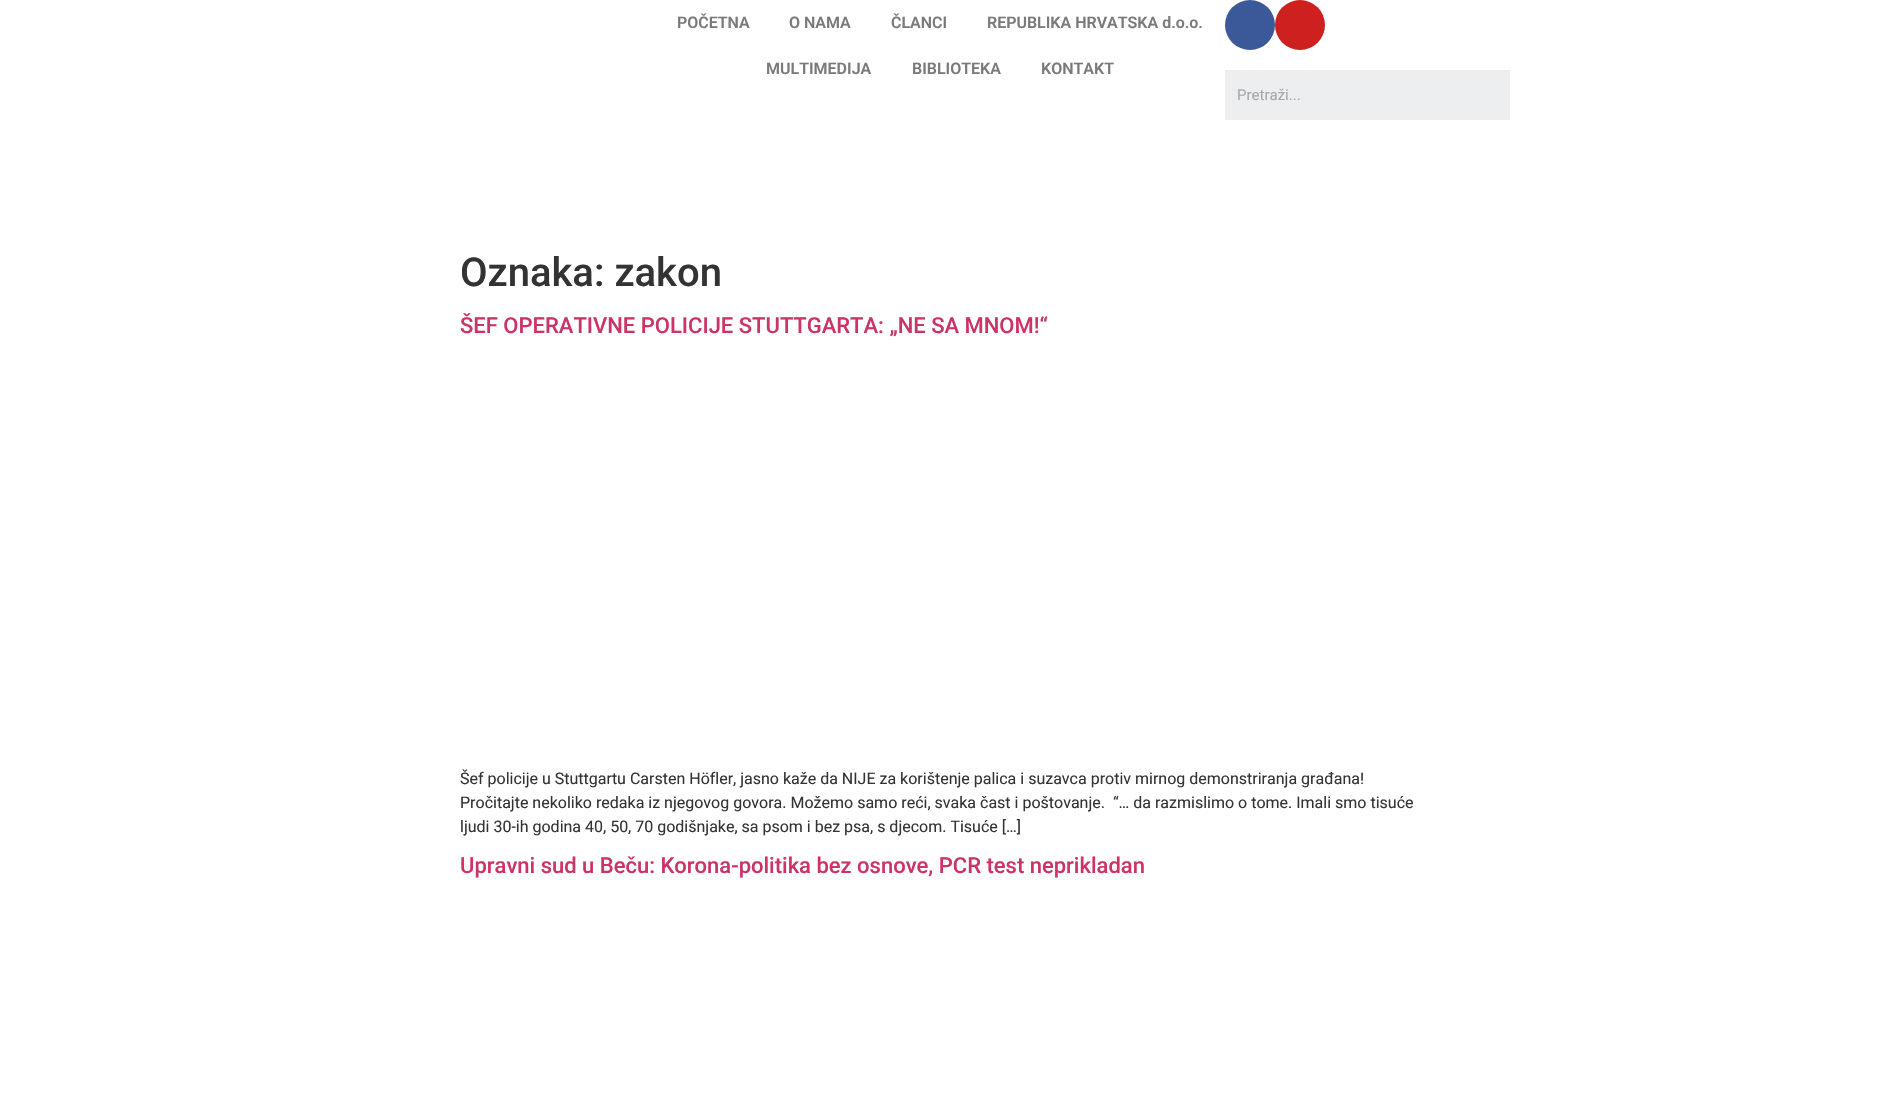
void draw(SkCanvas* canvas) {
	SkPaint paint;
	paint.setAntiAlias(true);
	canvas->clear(0xffffffff);
	SkFont f1(fontMgr->matchFamilyStyle("Roboto", SkFontStyle(600, SkFontStyle::kNormal_Width, SkFontStyle::kUpright_Slant)), 16);
	f1.setSubpixel(true);
	paint.setColor(0xff7a7a7a);
	canvas->drawString("POČETNA", 677, 28, f1, paint);
	canvas->drawString("O NAMA", 789, 28, f1, paint);
	canvas->drawString("ČLANCI", 891, 28, f1, paint);
	canvas->drawString("REPUBLIKA HRVATSKA d.o.o.", 987, 28, f1, paint);
	canvas->drawString("MULTIMEDIJA", 766, 74, f1, paint);
	canvas->drawString("BIBLIOTEKA", 912, 74, f1, paint);
	canvas->drawString("KONTAKT", 1041, 74, f1, paint);
	paint.setColor(0xff3b5998);
	canvas->drawCircle(1250, 25, 25, paint);
	paint.setColor(0xffcd201f);
	canvas->drawCircle(1300, 25, 25, paint);
	paint.setColor(0xffeceeef);
	canvas->drawRect(SkRect::MakeXYWH(1225, 70, 285, 50), paint);
	SkFont f2(fontMgr->matchFamilyStyle("Roboto", SkFontStyle::Normal()), 15);
	f2.setSubpixel(true);
	paint.setColor(0xffa8a8a9);
	canvas->drawString("Pretraži...", 1237, 100, f2, paint);
	SkFont f3(fontMgr->matchFamilyStyle("Roboto", SkFontStyle(500, SkFontStyle::kNormal_Width, SkFontStyle::kUpright_Slant)), 40);
	f3.setSubpixel(true);
	paint.setColor(0xff333333);
	canvas->drawString("Oznaka: zakon", 460, 286, f3, paint);
	SkFont f4(fontMgr->matchFamilyStyle("Roboto", SkFontStyle(500, SkFontStyle::kNormal_Width, SkFontStyle::kUpright_Slant)), 22);
	f4.setSubpixel(true);
	paint.setColor(0xffcc3366);
	canvas->drawString("ŠEF OPERATIVNE POLICIJE STUTTGARTA: „NE SA MNOM!“", 460, 333, f4, paint);
	SkFont f5(fontMgr->matchFamilyStyle("Roboto", SkFontStyle::Normal()), 16);
	f5.setSubpixel(true);
	paint.setColor(0xff333333);
	canvas->drawString("Šef policije u Stuttgartu Carsten Höfler, jasno kaže da NIJE za korištenje palica i suzavca protiv mirnog demonstriranja građana!", 460, 784, f5, paint);
	canvas->drawString("Pročitajte nekoliko redaka iz njegovog govora. Možemo samo reći, svaka čast i poštovanje.  “… da razmislimo o tome. Imali smo tisuće", 460, 808, f5, paint);
	canvas->drawString("ljudi 30-ih godina 40, 50, 70 godišnjake, sa psom i bez psa, s djecom. Tisuće […]", 460, 832, f5, paint);
	paint.setColor(0xffcc3366);
	canvas->drawString("Upravni sud u Beču: Korona-politika bez osnove, PCR test neprikladan", 460, 873, f4, paint);
}
